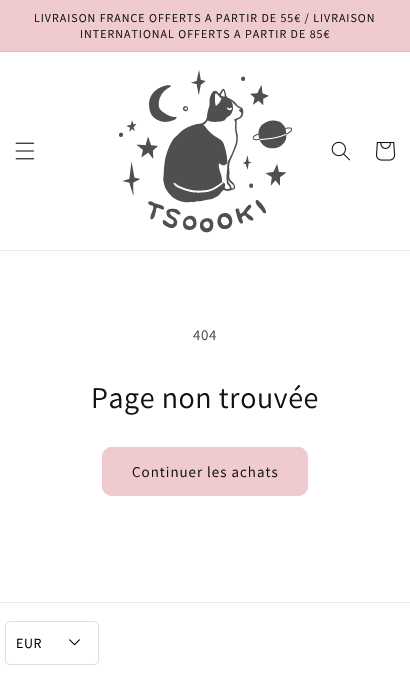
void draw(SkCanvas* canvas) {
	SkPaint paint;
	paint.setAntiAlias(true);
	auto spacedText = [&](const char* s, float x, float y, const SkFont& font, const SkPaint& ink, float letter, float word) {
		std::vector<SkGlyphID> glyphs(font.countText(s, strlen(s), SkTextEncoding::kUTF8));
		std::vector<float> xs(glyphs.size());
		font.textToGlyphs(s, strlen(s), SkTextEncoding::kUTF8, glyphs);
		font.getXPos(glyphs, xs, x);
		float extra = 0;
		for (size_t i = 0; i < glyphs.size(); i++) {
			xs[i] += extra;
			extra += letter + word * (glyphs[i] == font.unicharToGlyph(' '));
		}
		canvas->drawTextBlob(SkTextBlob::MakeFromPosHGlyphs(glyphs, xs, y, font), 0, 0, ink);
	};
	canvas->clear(0xffffffff);
	paint.setColor(0xffefcacf);
	canvas->drawRect(SkRect::MakeXYWH(0, 0, 410, 51), paint);
	paint.setColor(0xffddbbc0);
	canvas->drawRect(SkRect::MakeXYWH(0, 51, 410, 1), paint);
	SkFont f1(fontMgr->matchFamilyStyle("Assistant", SkFontStyle::Normal()), 12);
	f1.setSubpixel(true);
	paint.setColor(0xff121212);
	spacedText("LIVRAISON FRANCE OFFERTS A PARTIR DE 55€ / LIVRAISON", 34, 22, f1, paint, 1, 0);
	spacedText("INTERNATIONAL OFFERTS A PARTIR DE 85€", 80, 38, f1, paint, 1, 0);
	paint.setColor(0xffececec);
	canvas->drawRect(SkRect::MakeXYWH(0, 250, 410, 1), paint);
	canvas->drawImageRect(SkImages::DeferredFromEncodedData(SkData::MakeFromFileName("img1.png")), SkRect::MakeXYWH(15, 142, 20, 18), SkSamplingOptions());
	canvas->drawImageRect(SkImages::DeferredFromEncodedData(SkData::MakeFromFileName("img2.png")), SkRect::MakeXYWH(119, 70, 173, 163), SkSamplingOptions());
	canvas->drawImageRect(SkImages::DeferredFromEncodedData(SkData::MakeFromFileName("img3.png")), SkRect::MakeXYWH(331, 141, 19, 20), SkSamplingOptions());
	canvas->drawImageRect(SkImages::DeferredFromEncodedData(SkData::MakeFromFileName("img4.png")), SkRect::MakeXYWH(376, 142, 20, 19), SkSamplingOptions());
	SkFont f2(fontMgr->matchFamilyStyle("Assistant", SkFontStyle::Normal()), 15);
	f2.setSubpixel(true);
	paint.setColor(0xff4d4d4d);
	spacedText("404", 193, 340, f2, paint, 0.6, 0);
	SkFont f3(fontMgr->matchFamilyStyle("Assistant", SkFontStyle::Normal()), 30);
	f3.setSubpixel(true);
	paint.setColor(0xff121212);
	spacedText("Page non trouvée", 91, 408, f3, paint, 0.6, 0);
	paint.setColor(0xffefcacf);
	canvas->drawRoundRect(SkRect::MakeXYWH(102, 447, 206, 49), 10, 10, paint);
	paint.setStroke(true);
	paint.setStrokeWidth(2);
	canvas->drawRoundRect(SkRect::MakeXYWH(103, 448, 204, 47), 9, 9, paint);
	paint.setStroke(false);
	paint.setColor(0xff121212);
	spacedText("Continuer les achats", 132, 477, f2, paint, 1, 0);
	paint.setColor(0xffececec);
	canvas->drawRect(SkRect::MakeXYWH(0, 602, 410, 1), paint);
	paint.setStroke(true);
	paint.setStrokeWidth(1);
	paint.setColor(0xffe0e0e0);
	canvas->drawRoundRect(SkRect::MakeXYWH(5.5, 621.5, 93, 43), 3.5, 3.5, paint);
	SkFont f4(fontMgr->matchFamilyStyle("Assistant", SkFontStyle::Normal()), 14);
	f4.setSubpixel(true);
	paint.setStroke(false);
	paint.setColor(0xff000000);
	spacedText("EUR", 16, 648, f4, paint, 0.6, 0);
	canvas->drawImageRect(SkImages::DeferredFromEncodedData(SkData::MakeFromFileName("img5.png")), SkRect::MakeXYWH(69, 639, 11, 7), SkSamplingOptions());
}
